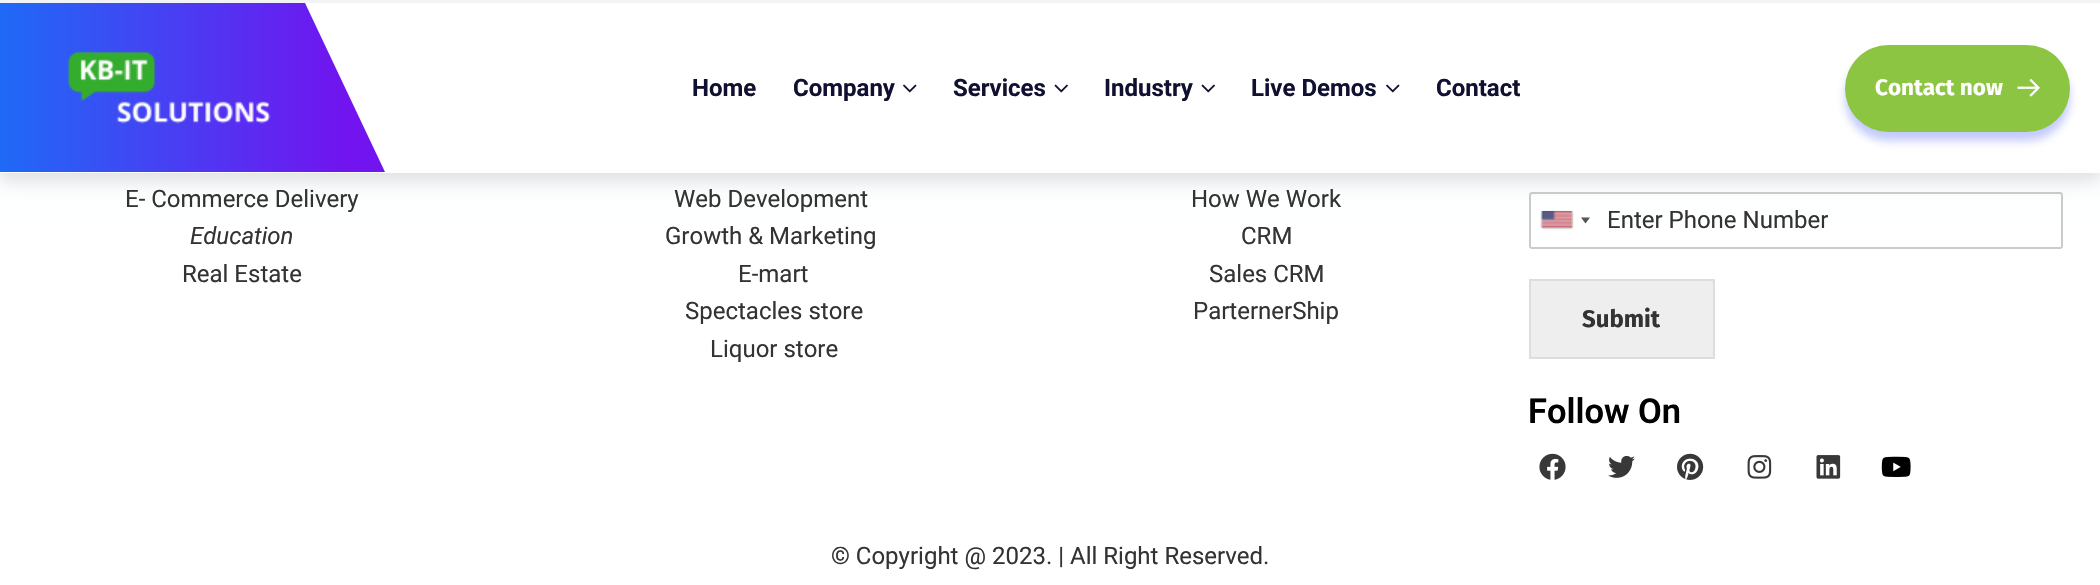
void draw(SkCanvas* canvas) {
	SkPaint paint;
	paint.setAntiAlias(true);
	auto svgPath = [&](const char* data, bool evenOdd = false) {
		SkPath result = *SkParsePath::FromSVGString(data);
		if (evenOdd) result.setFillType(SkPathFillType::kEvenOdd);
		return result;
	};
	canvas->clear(0xffffffff);
	paint.setStroke(true);
	paint.setStrokeWidth(2);
	paint.setColor(0xffcccccc);
	canvas->drawRoundRect(SkRect::MakeXYWH(1530, 193, 532, 55), 2, 2, paint);
	paint.setStroke(false);
	paint.setColor(0xff888888);
	paint.setMaskFilter(SkMaskFilter::MakeBlur(kNormal_SkBlurStyle, 1));
	canvas->drawRect(SkRect::MakeXYWH(1542, 212, 30, 16), paint);
	paint.setMaskFilter(nullptr);
	paint.setColor(0xffdbdbdb);
	canvas->drawRect(SkRect::MakeXYWH(1542, 212, 30, 16), paint);
	canvas->drawImageRect(SkImages::DeferredFromEncodedData(SkData::MakeFromFileName("img5.png")), SkRect::MakeXYWH(1541, 211, 32, 17), SkSamplingOptions());
	paint.setColor(0xff555555);
	canvas->drawPath(svgPath("M1581 217.5H1590L1585.5 223.5Z"), paint);
	paint.setColor(0x1702154e);
	paint.setMaskFilter(SkMaskFilter::MakeBlur(kNormal_SkBlurStyle, 13.5));
	canvas->drawRect(SkRect::MakeXYWH(0, 5, 2100, 172), paint);
	paint.setMaskFilter(nullptr);
	paint.setColor(0x0f000000);
	paint.setMaskFilter(SkMaskFilter::MakeBlur(kNormal_SkBlurStyle, 6));
	canvas->drawRect(SkRect::MakeXYWH(0, 9, 2100, 173), paint);
	paint.setMaskFilter(nullptr);
	paint.setColor(0xffffffff);
	canvas->drawRect(SkRect::MakeXYWH(0, 3, 2100, 170), paint);
	paint.setColor(0xfff1f3f5);
	canvas->drawRect(SkRect::MakeXYWH(0, 0, 2100, 3), paint);
	{
		const SkColor colors[] = {0xff7114ef, 0xff1475f7};
		const float stops[] = {0, 1};
		const SkPoint ends[] = {{345, 88}, {-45, 88}};
		paint.setShader(SkGradientShader::MakeLinear(ends, colors, stops, 2, SkTileMode::kClamp));
		paint.setAlpha(255);
	}
	canvas->drawPath(svgPath("M-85 3H305L385 172H-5Z"), paint);
	canvas->drawImageRect(SkImages::DeferredFromEncodedData(SkData::MakeFromFileName("img1.png")), SkRect::MakeXYWH(67, 51, 204, 73), SkSamplingOptions());
	SkFont f1(fontMgr->matchFamilyStyle("Roboto", SkFontStyle::Bold()), 24);
	f1.setSubpixel(true);
	paint.setShader(nullptr);
	paint.setColor(0xff101130);
	canvas->drawString("Home", 692, 96, f1, paint);
	canvas->drawString("Company", 793, 96, f1, paint);
	canvas->drawImageRect(SkImages::DeferredFromEncodedData(SkData::MakeFromFileName("img2.png")), SkRect::MakeXYWH(903, 84, 14, 9), SkSamplingOptions());
	canvas->drawString("Services", 953, 96, f1, paint);
	canvas->drawImageRect(SkImages::DeferredFromEncodedData(SkData::MakeFromFileName("img3.png")), SkRect::MakeXYWH(1054, 84, 14, 9), SkSamplingOptions());
	canvas->drawString("Industry", 1104, 96, f1, paint);
	canvas->drawImageRect(SkImages::DeferredFromEncodedData(SkData::MakeFromFileName("img3.png")), SkRect::MakeXYWH(1201, 84, 14, 9), SkSamplingOptions());
	canvas->drawString("Live Demos", 1251, 96, f1, paint);
	canvas->drawImageRect(SkImages::DeferredFromEncodedData(SkData::MakeFromFileName("img2.png")), SkRect::MakeXYWH(1386, 84, 14, 9), SkSamplingOptions());
	canvas->drawString("Contact", 1436, 96, f1, paint);
	paint.setColor(0x4d3750f4);
	paint.setMaskFilter(SkMaskFilter::MakeBlur(kNormal_SkBlurStyle, 4.5));
	canvas->drawRoundRect(SkRect::MakeXYWH(1845, 54, 225, 87), 43.5, 43.5, paint);
	paint.setMaskFilter(nullptr);
	paint.setColor(0xff8bc541);
	canvas->drawRoundRect(SkRect::MakeXYWH(1845, 45, 225, 87), 43.5, 43.5, paint);
	SkFont f2(fontMgr->matchFamilyStyle("Fira Sans", SkFontStyle::Bold()), 22.5);
	f2.setSubpixel(true);
	paint.setColor(0xffffffff);
	canvas->drawString("Contact now", 1875, 95, f2, paint);
	canvas->drawImageRect(SkImages::DeferredFromEncodedData(SkData::MakeFromFileName("img4.png")), SkRect::MakeXYWH(2017, 78, 23, 19), SkSamplingOptions());
	SkFont f3(fontMgr->matchFamilyStyle("Roboto", SkFontStyle::Normal()), 24);
	f3.setSubpixel(true);
	paint.setColor(0xff333333);
	canvas->drawString("E- Commerce Delivery", 125, 207, f3, paint);
	SkFont f4(fontMgr->matchFamilyStyle("Roboto", SkFontStyle::Italic()), 24);
	f4.setSubpixel(true);
	canvas->drawString("Education", 190, 244, f4, paint);
	canvas->drawString("Real Estate", 182, 282, f3, paint);
	canvas->drawString("Web Development", 674, 207, f3, paint);
	canvas->drawString("Growth & Marketing", 665, 244, f3, paint);
	canvas->drawString("E-mart", 738, 282, f3, paint);
	canvas->drawString("Spectacles store", 685, 319, f3, paint);
	canvas->drawString("Liquor store", 710, 357, f3, paint);
	canvas->drawString("How We Work", 1191, 207, f3, paint);
	canvas->drawString("CRM", 1241, 244, f3, paint);
	canvas->drawString("Sales CRM", 1209, 282, f3, paint);
	canvas->drawString("ParternerShip", 1193, 319, f3, paint);
	canvas->drawString("Enter Phone Number", 1607, 228, f3, paint);
	paint.setColor(0xffeeeeee);
	canvas->drawRect(SkRect::MakeXYWH(1530, 280, 184, 78), paint);
	paint.setStroke(true);
	paint.setColor(0xffdddddd);
	canvas->drawRect(SkRect::MakeXYWH(1530, 280, 184, 78), paint);
	SkFont f5(fontMgr->matchFamilyStyle("Fira Sans", SkFontStyle::Bold()), 24);
	f5.setSubpixel(true);
	paint.setStroke(false);
	paint.setColor(0xff333333);
	canvas->drawString("Submit", 1582, 327, f5, paint);
	SkFont f6(fontMgr->matchFamilyStyle("Roboto", SkFontStyle(600, SkFontStyle::kNormal_Width, SkFontStyle::kUpright_Slant)), 34.5);
	f6.setSubpixel(true);
	paint.setColor(0xff000000);
	canvas->drawString("Follow On", 1528, 423, f6, paint);
	canvas->drawImageRect(SkImages::DeferredFromEncodedData(SkData::MakeFromFileName("img6.png")), SkRect::MakeXYWH(1539, 453, 27, 27), SkSamplingOptions());
	canvas->drawImageRect(SkImages::DeferredFromEncodedData(SkData::MakeFromFileName("img7.png")), SkRect::MakeXYWH(1608, 455, 27, 23), SkSamplingOptions());
	canvas->drawImageRect(SkImages::DeferredFromEncodedData(SkData::MakeFromFileName("img8.png")), SkRect::MakeXYWH(1677, 453, 27, 27), SkSamplingOptions());
	canvas->drawImageRect(SkImages::DeferredFromEncodedData(SkData::MakeFromFileName("img9.png")), SkRect::MakeXYWH(1747, 455, 25, 24), SkSamplingOptions());
	canvas->drawImageRect(SkImages::DeferredFromEncodedData(SkData::MakeFromFileName("img10.png")), SkRect::MakeXYWH(1816, 455, 25, 24), SkSamplingOptions());
	canvas->drawImageRect(SkImages::DeferredFromEncodedData(SkData::MakeFromFileName("img11.png")), SkRect::MakeXYWH(1881, 456, 30, 21), SkSamplingOptions());
	paint.setColor(0xff333333);
	canvas->drawString("© Copyright @ 2023. | All Right Reserved.", 831, 564, f3, paint);
}
